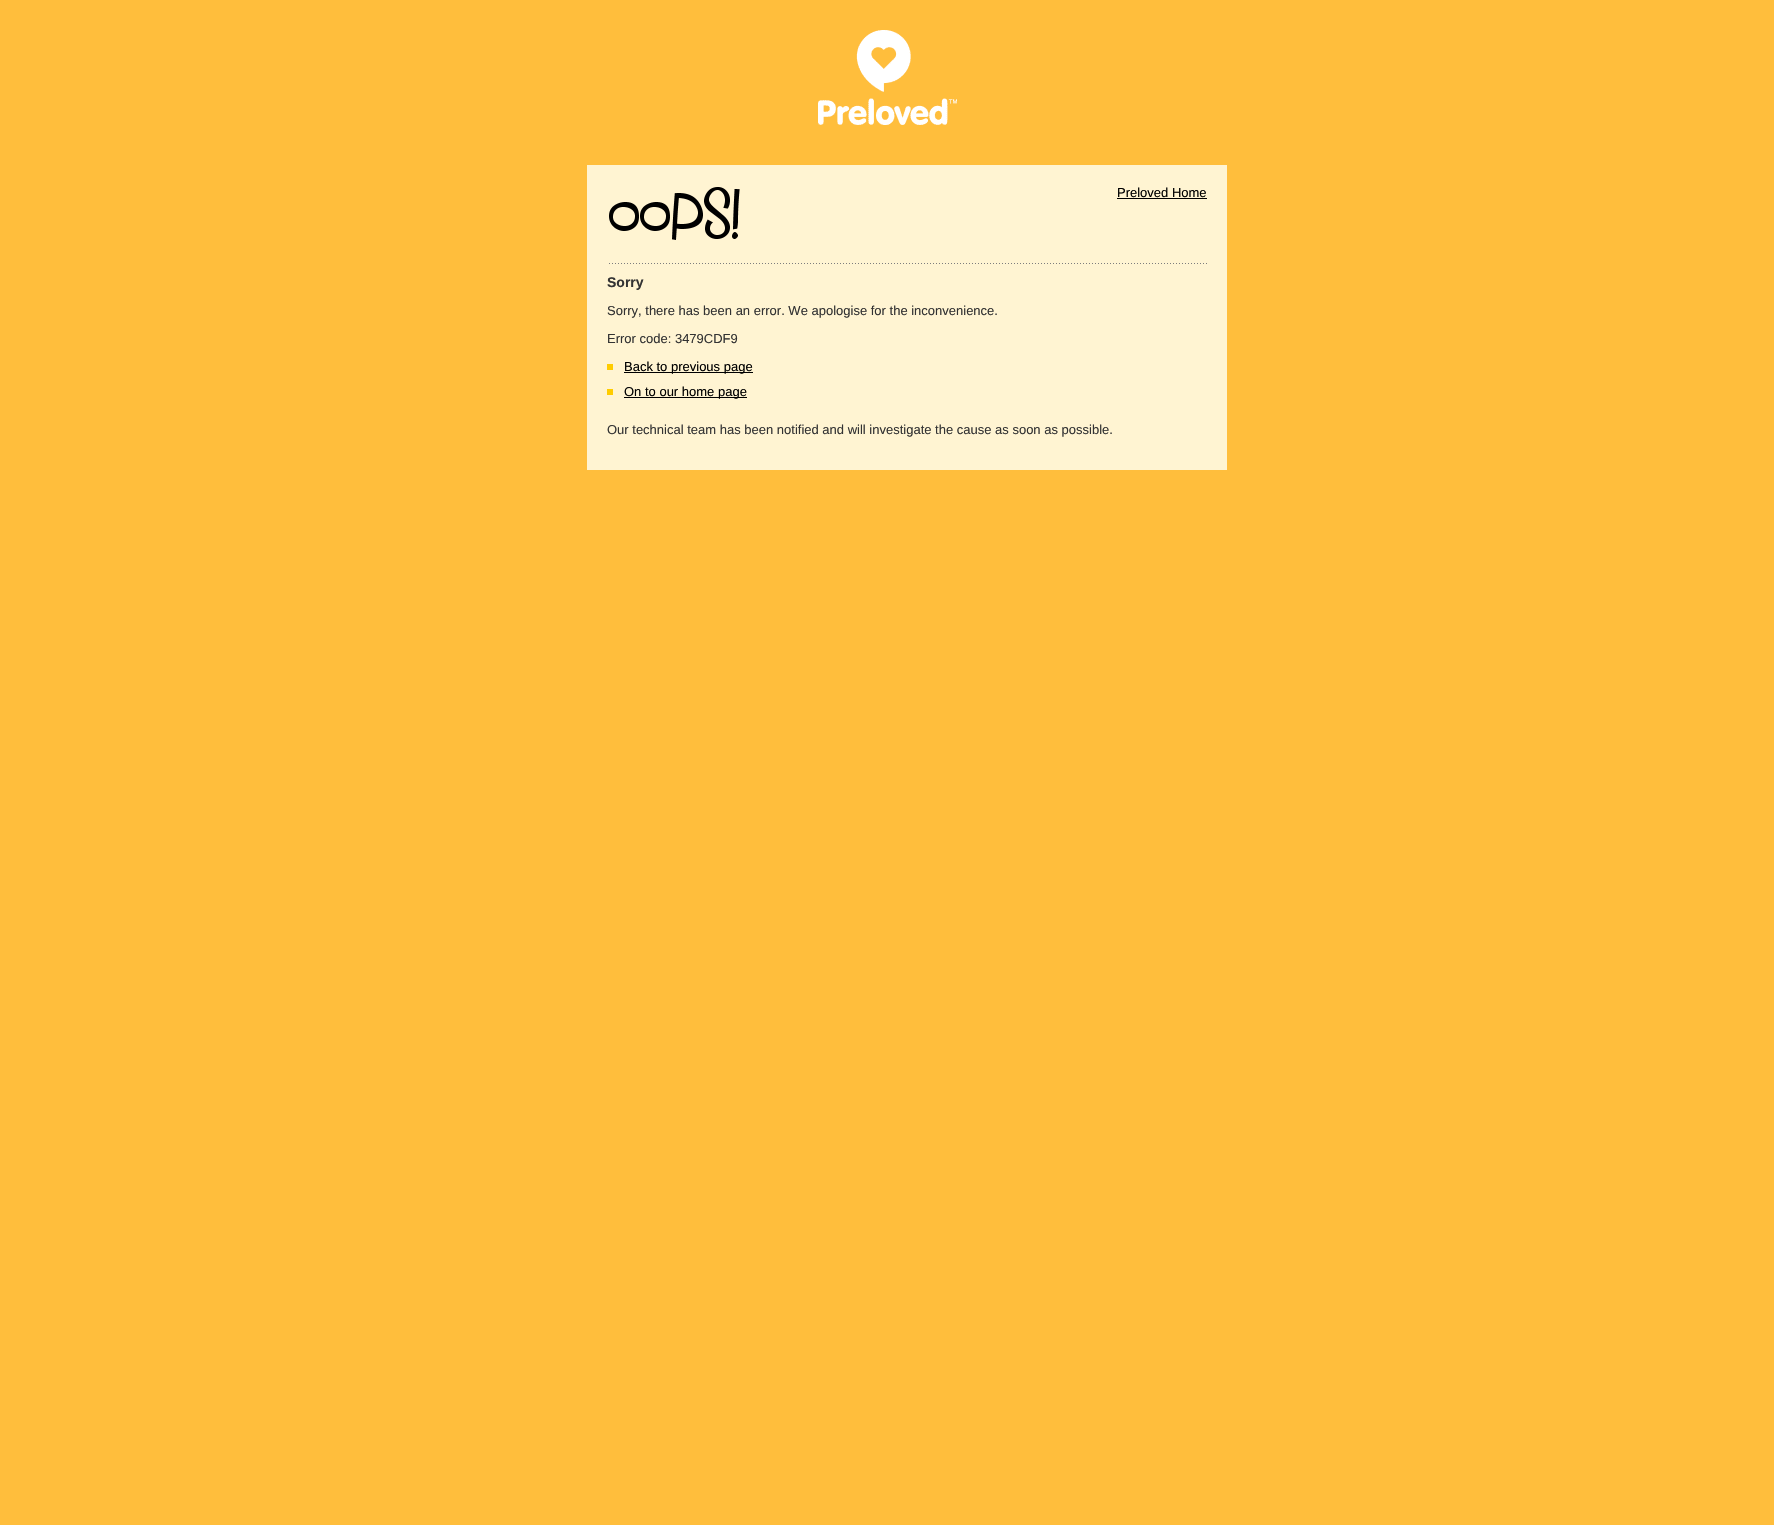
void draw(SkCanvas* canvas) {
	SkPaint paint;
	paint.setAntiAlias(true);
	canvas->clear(0xffffbe3c);
	canvas->drawImageRect(SkImages::DeferredFromEncodedData(SkData::MakeFromFileName("img1.png")), SkRect::MakeXYWH(818, 30, 139, 95), SkSamplingOptions());
	paint.setColor(0xfffff4d2);
	canvas->drawRect(SkRect::MakeXYWH(587, 165, 640, 305), paint);
	canvas->drawImageRect(SkImages::DeferredFromEncodedData(SkData::MakeFromFileName("img2.png")), SkRect::MakeXYWH(609, 187, 131, 53), SkSamplingOptions());
	SkFont f1(fontMgr->matchFamilyStyle("Liberation Sans", SkFontStyle::Normal()), 13);
	f1.setSubpixel(true);
	paint.setColor(0xff000000);
	canvas->drawString("Preloved Home", 1117, 197, f1, paint);
	canvas->drawRect(SkRect::MakeXYWH(1117, 198, 90, 1), paint);
	canvas->drawImageRect(SkImages::DeferredFromEncodedData(SkData::MakeFromFileName("img3.png")), SkRect::MakeXYWH(609, 263, 598, 1), SkSamplingOptions());
	SkFont f2(fontMgr->matchFamilyStyle("Liberation Sans", SkFontStyle::Bold()), 14);
	f2.setSubpixel(true);
	paint.setColor(0xff333333);
	canvas->drawString("Sorry", 607, 287, f2, paint);
	canvas->drawString("Sorry, there has been an error. We apologise for the inconvenience.", 607, 315, f1, paint);
	canvas->drawString("Error code: 3479CDF9", 607, 343, f1, paint);
	paint.setColor(0xffffcc00);
	canvas->drawRect(SkRect::MakeXYWH(607, 364, 6, 6), paint);
	paint.setColor(0xff000000);
	canvas->drawRect(SkRect::MakeXYWH(624, 372, 129, 1), paint);
	canvas->drawString("Back to previous page", 624, 371, f1, paint);
	paint.setColor(0xffffcc00);
	canvas->drawRect(SkRect::MakeXYWH(607, 389, 6, 6), paint);
	paint.setColor(0xff000000);
	canvas->drawRect(SkRect::MakeXYWH(624, 397, 123, 1), paint);
	canvas->drawString("On to our home page", 624, 396, f1, paint);
	paint.setColor(0xff333333);
	canvas->drawString("Our technical team has been notified and will investigate the cause as soon as possible.", 607, 434, f1, paint);
}
